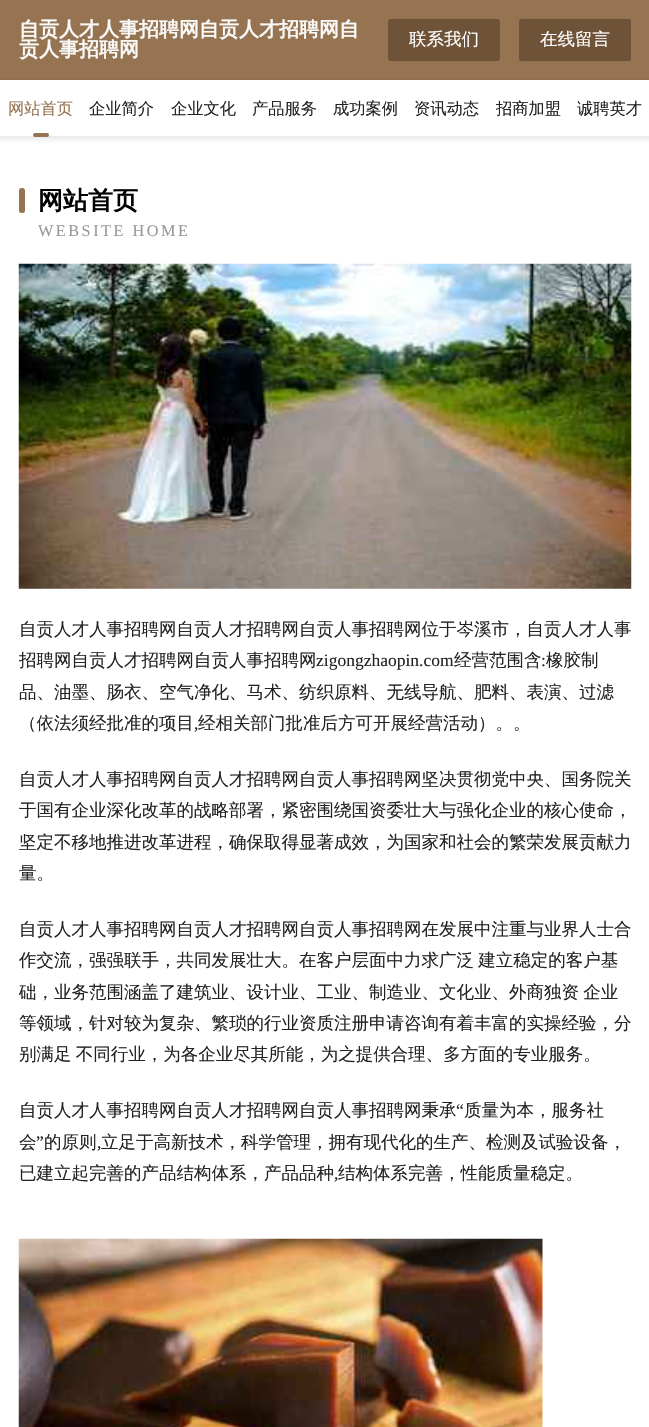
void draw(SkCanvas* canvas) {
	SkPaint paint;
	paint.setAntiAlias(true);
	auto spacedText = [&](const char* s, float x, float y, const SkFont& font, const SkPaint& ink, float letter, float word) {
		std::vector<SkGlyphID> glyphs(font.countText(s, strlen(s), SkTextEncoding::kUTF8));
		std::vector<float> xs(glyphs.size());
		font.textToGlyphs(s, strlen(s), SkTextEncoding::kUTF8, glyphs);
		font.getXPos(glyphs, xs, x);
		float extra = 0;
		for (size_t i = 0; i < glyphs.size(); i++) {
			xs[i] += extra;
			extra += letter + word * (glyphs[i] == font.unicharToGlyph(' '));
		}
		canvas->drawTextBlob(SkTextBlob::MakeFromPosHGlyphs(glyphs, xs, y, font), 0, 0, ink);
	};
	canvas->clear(0xffffffff);
	paint.setColor(0xff977451);
	canvas->drawRect(SkRect::MakeXYWH(0, 0, 649, 80), paint);
	SkFont f1(fontMgr->matchFamilyStyle("WenQuanYi Zen Hei", SkFontStyle::Bold()), 20);
	f1.setSubpixel(true);
	paint.setColor(0xfff9f9f9);
	canvas->drawString("自贡人才人事招聘网自贡人才招聘网自", 19, 36, f1, paint);
	canvas->drawString("贡人事招聘网", 19, 56, f1, paint);
	paint.setColor(0xff6f5338);
	canvas->drawRoundRect(SkRect::MakeXYWH(388, 19, 112, 42), 2.5, 2.5, paint);
	SkFont f2(fontMgr->matchFamilyStyle("WenQuanYi Zen Hei", SkFontStyle(500, SkFontStyle::kNormal_Width, SkFontStyle::kUpright_Slant)), 17.5);
	f2.setSubpixel(true);
	paint.setColor(0xffffffff);
	canvas->drawString("联系我们", 409, 45, f2, paint);
	paint.setColor(0xff6f5338);
	canvas->drawRoundRect(SkRect::MakeXYWH(519, 19, 112, 42), 2.5, 2.5, paint);
	paint.setColor(0xffffffff);
	canvas->drawString("在线留言", 540, 45, f2, paint);
	paint.setColor(0x14000000);
	paint.setMaskFilter(SkMaskFilter::MakeBlur(kNormal_SkBlurStyle, 2));
	canvas->drawRect(SkRect::MakeXYWH(-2, 79, 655, 61), paint);
	paint.setMaskFilter(nullptr);
	paint.setColor(0xffffffff);
	canvas->drawRect(SkRect::MakeXYWH(0, 80, 649, 56), paint);
	SkFont f3(fontMgr->matchFamilyStyle("WenQuanYi Zen Hei", SkFontStyle(500, SkFontStyle::kNormal_Width, SkFontStyle::kUpright_Slant)), 16.25);
	f3.setSubpixel(true);
	paint.setColor(0xff977451);
	canvas->drawString("网站首页", 8, 114, f3, paint);
	canvas->drawRoundRect(SkRect::MakeXYWH(33, 133, 16, 4), 2, 2, paint);
	paint.setColor(0xff232323);
	canvas->drawString("企业简介", 89, 114, f3, paint);
	canvas->drawString("企业文化", 171, 114, f3, paint);
	canvas->drawString("产品服务", 252, 114, f3, paint);
	canvas->drawString("成功案例", 333, 114, f3, paint);
	canvas->drawString("资讯动态", 414, 114, f3, paint);
	canvas->drawString("招商加盟", 496, 114, f3, paint);
	canvas->drawString("诚聘英才", 577, 114, f3, paint);
	paint.setColor(0xff977451);
	canvas->drawRoundRect(SkRect::MakeXYWH(19, 188, 6, 25), 2.5, 2.5, paint);
	SkFont f4(fontMgr->matchFamilyStyle("WenQuanYi Zen Hei", SkFontStyle::Bold()), 25);
	f4.setSubpixel(true);
	paint.setColor(0xff000000);
	canvas->drawString("网站首页", 38, 209, f4, paint);
	SkFont f5(fontMgr->matchFamilyStyle("Liberation Serif", SkFontStyle::Normal()), 16.25);
	f5.setSubpixel(true);
	paint.setColor(0xff989898);
	spacedText("WEBSITE HOME", 38, 236, f5, paint, 2.5, 0);
	canvas->drawImageRect(SkImages::DeferredFromEncodedData(SkData::MakeFromFileName("img1.png")), SkRect::MakeXYWH(18, 263, 614, 326), SkSamplingOptions());
	paint.setColor(0xff232323);
	canvas->drawString("自贡人才人事招聘网自贡人才招聘网自贡人事招聘网位于岑溪市，自贡人才人事", 19, 635, f2, paint);
	canvas->drawString("招聘网自贡人才招聘网自贡人事招聘网", 19, 666, f2, paint);
	SkFont f6(fontMgr->matchFamilyStyle("Liberation Serif", SkFontStyle::Normal()), 17.5);
	f6.setSubpixel(true);
	canvas->drawString("zigongzhaopin.com", 316, 666, f6, paint);
	canvas->drawString("经营范围含", 454, 666, f2, paint);
	canvas->drawString(":", 541, 666, f6, paint);
	canvas->drawString("橡胶制", 546, 666, f2, paint);
	canvas->drawString("品、油墨、肠衣、空气净化、马术、纺织原料、无线导航、肥料、表演、过滤", 19, 698, f2, paint);
	canvas->drawString("（依法须经批准的项目", 19, 729, f2, paint);
	canvas->drawString(",", 194, 729, f6, paint);
	canvas->drawString("经相关部门批准后方可开展经营活动）。。", 198, 729, f2, paint);
	canvas->drawString("自贡人才人事招聘网自贡人才招聘网自贡人事招聘网坚决贯彻党中央、国务院关", 19, 785, f2, paint);
	canvas->drawString("于国有企业深化改革的战略部署，紧密围绕国资委壮大与强化企业的核心使命，", 19, 816, f2, paint);
	canvas->drawString("坚定不移地推进改革进程，确保取得显著成效，为国家和社会的繁荣发展贡献力", 19, 848, f2, paint);
	canvas->drawString("量。", 19, 879, f2, paint);
	canvas->drawString("自贡人才人事招聘网自贡人才招聘网自贡人事招聘网在发展中注重与业界人士合", 19, 935, f2, paint);
	spacedText("作交流，强强联手，共同发展壮大。在客户层面中力求广泛 建立稳定的客户基", 19, 966, f2, paint, 0, -1);
	spacedText("础，业务范围涵盖了建筑业、设计业、工业、制造业、文化业、外商独资 企业", 19, 998, f2, paint, 0, -1);
	canvas->drawString("等领域，针对较为复杂、繁琐的行业资质注册申请咨询有着丰富的实操经验，分", 19, 1029, f2, paint);
	spacedText("别满足 不同行业，为各企业尽其所能，为之提供合理、多方面的专业服务。", 19, 1060, f2, paint, 0, -1);
	canvas->drawString("自贡人才人事招聘网自贡人才招聘网自贡人事招聘网秉承", 19, 1116, f2, paint);
	canvas->drawString("“", 456, 1116, f6, paint);
	canvas->drawString("质量为本，服务社", 464, 1116, f2, paint);
	canvas->drawString("会", 19, 1148, f2, paint);
	canvas->drawString("”", 36, 1148, f6, paint);
	canvas->drawString("的原则", 44, 1148, f2, paint);
	canvas->drawString("立足于高新技术，科学管理，拥有现代化的生产、检测及试验设备，", 101, 1148, f2, paint);
	canvas->drawString(",", 97, 1148, f6, paint);
	canvas->drawString("已建立起完善的产品结构体系，产品品种", 19, 1179, f2, paint);
	canvas->drawString(",", 334, 1179, f6, paint);
	canvas->drawString("结构体系完善，性能质量稳定。", 338, 1179, f2, paint);
	canvas->drawImageRect(SkImages::DeferredFromEncodedData(SkData::MakeFromFileName("img2.png")), SkRect::MakeXYWH(18, 1238, 525, 189), SkSamplingOptions());
}
